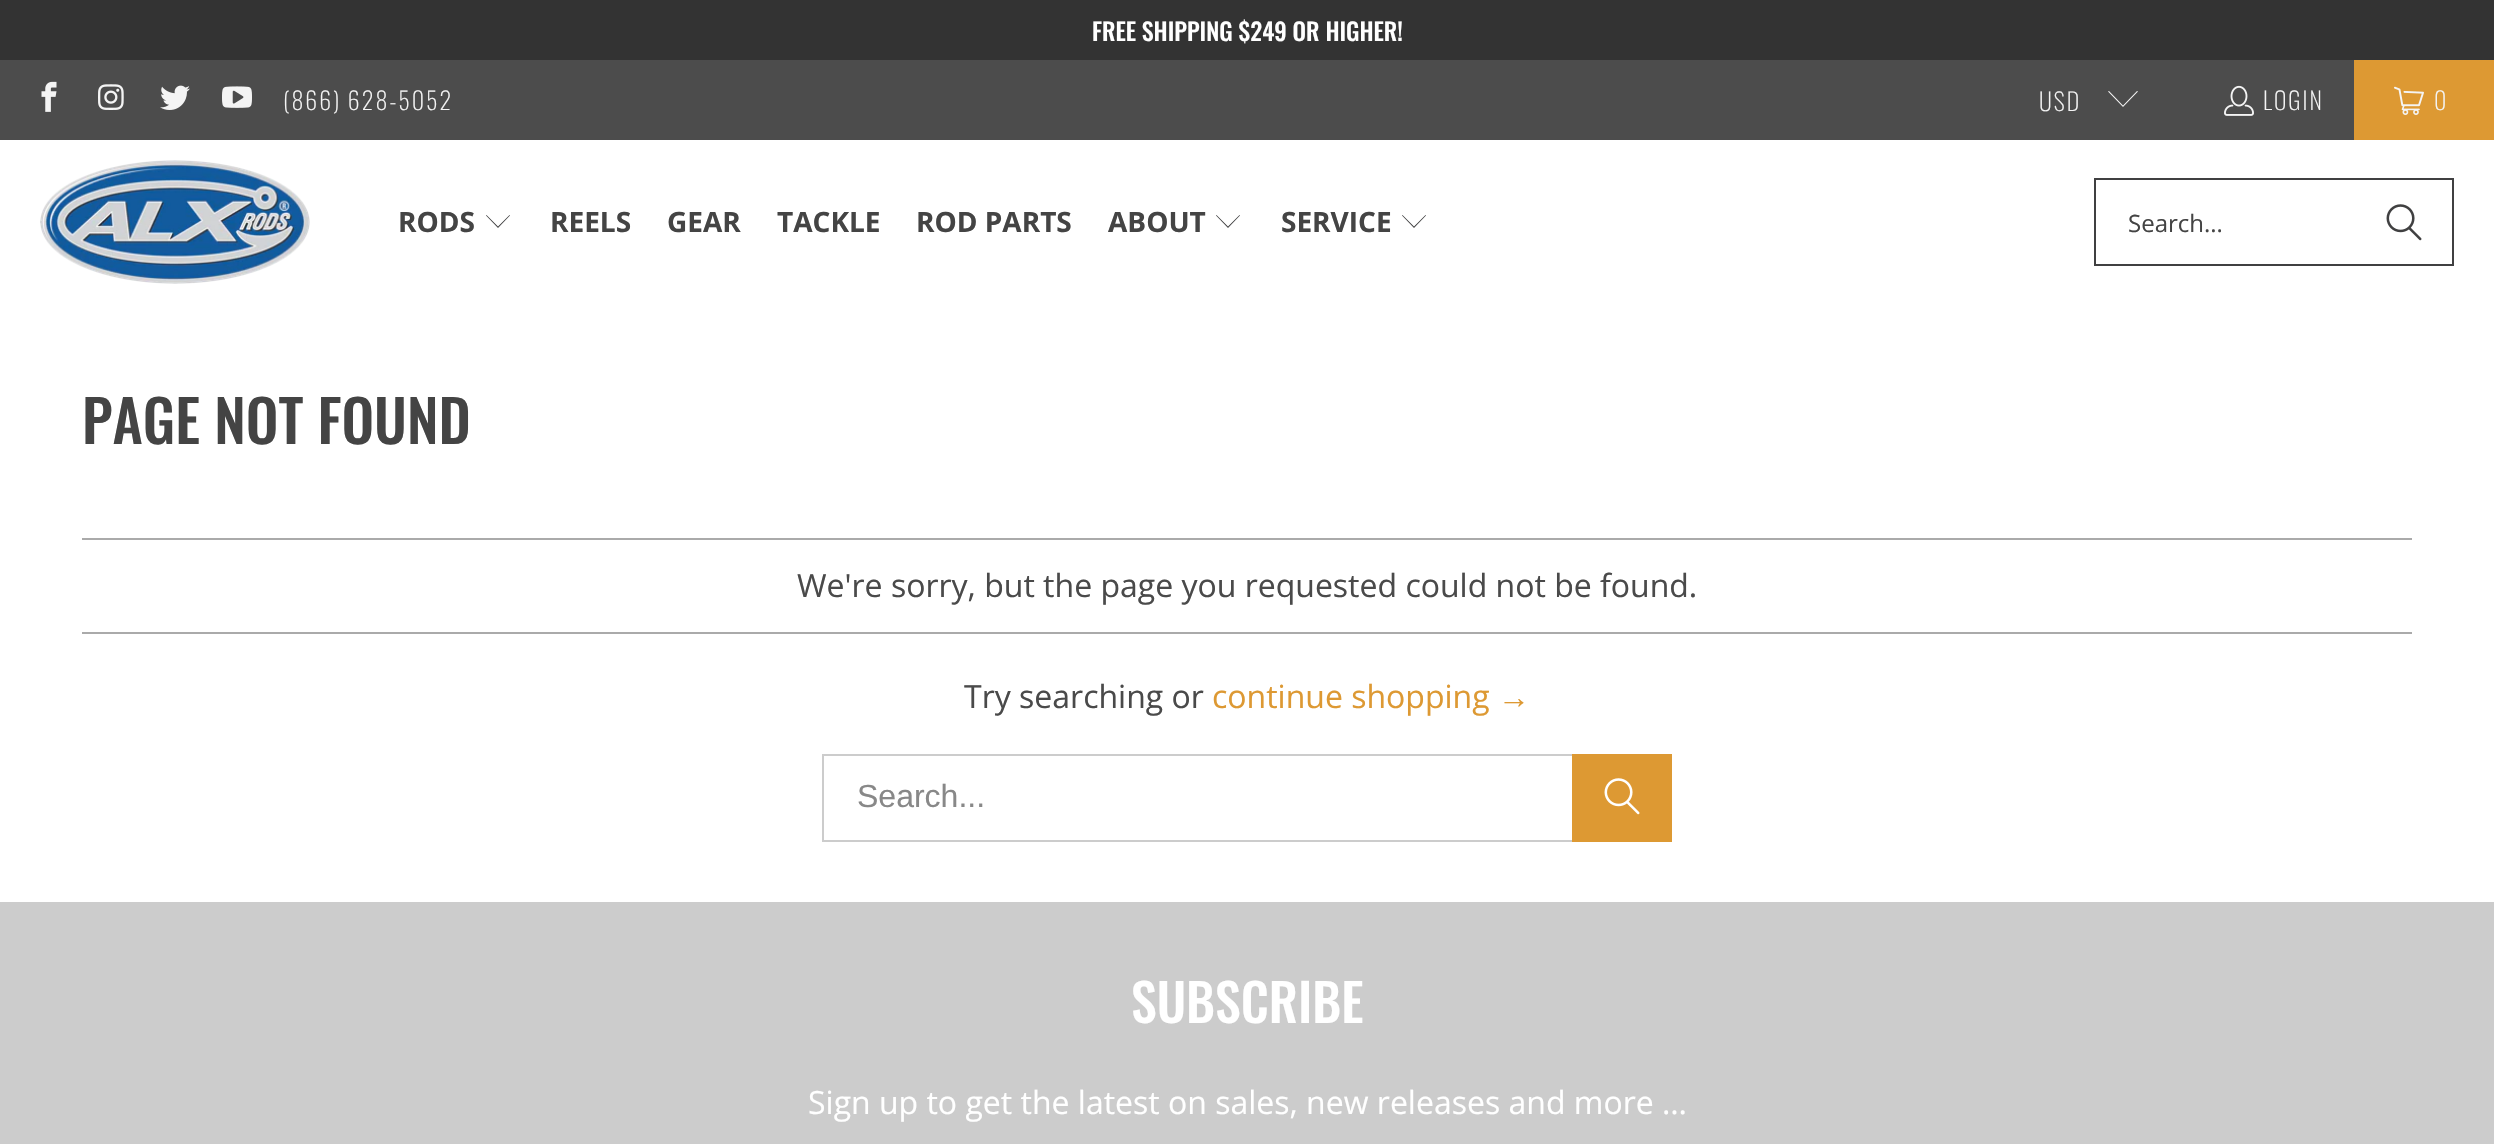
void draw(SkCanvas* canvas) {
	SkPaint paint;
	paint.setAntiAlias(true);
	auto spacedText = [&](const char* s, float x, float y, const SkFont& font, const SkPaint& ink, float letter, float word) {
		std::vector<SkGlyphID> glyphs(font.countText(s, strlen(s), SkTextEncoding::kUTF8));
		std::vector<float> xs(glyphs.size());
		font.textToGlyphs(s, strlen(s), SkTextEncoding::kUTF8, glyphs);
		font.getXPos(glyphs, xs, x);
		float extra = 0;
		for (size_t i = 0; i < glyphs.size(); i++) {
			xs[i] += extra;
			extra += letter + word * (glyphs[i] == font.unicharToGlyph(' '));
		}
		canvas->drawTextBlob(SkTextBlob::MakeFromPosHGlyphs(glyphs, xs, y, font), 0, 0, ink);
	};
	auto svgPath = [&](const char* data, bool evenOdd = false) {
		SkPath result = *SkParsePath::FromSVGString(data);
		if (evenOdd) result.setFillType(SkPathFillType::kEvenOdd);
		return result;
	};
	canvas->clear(0xffffffff);
	paint.setColor(0xff333333);
	canvas->drawRect(SkRect::MakeXYWH(0, 0, 2494, 60), paint);
	SkFont f1(fontMgr->matchFamilyStyle("Oswald", SkFontStyle(500, SkFontStyle::kNormal_Width, SkFontStyle::kUpright_Slant)), 24);
	f1.setSubpixel(true);
	paint.setColor(0xffffffff);
	canvas->drawString("FREE SHIPPING $249 OR HIGHER!", 1092, 41, f1, paint);
	paint.setColor(0xff4c4c4c);
	canvas->drawRect(SkRect::MakeXYWH(0, 60, 2354, 80), paint);
	canvas->drawImageRect(SkImages::DeferredFromEncodedData(SkData::MakeFromFileName("img1.png")), SkRect::MakeXYWH(41, 81, 16, 31), SkSamplingOptions());
	canvas->drawImageRect(SkImages::DeferredFromEncodedData(SkData::MakeFromFileName("img2.png")), SkRect::MakeXYWH(98, 84, 26, 26), SkSamplingOptions());
	canvas->drawImageRect(SkImages::DeferredFromEncodedData(SkData::MakeFromFileName("img3.png")), SkRect::MakeXYWH(160, 85, 30, 25), SkSamplingOptions());
	canvas->drawImageRect(SkImages::DeferredFromEncodedData(SkData::MakeFromFileName("img4.png")), SkRect::MakeXYWH(222, 86, 30, 22), SkSamplingOptions());
	SkFont f2(fontMgr->matchFamilyStyle("Oswald", SkFontStyle(200, SkFontStyle::kNormal_Width, SkFontStyle::kUpright_Slant)), 24);
	f2.setSubpixel(true);
	paint.setColor(0xfff4f4f4);
	spacedText("(866) 628-5052", 283, 110, f2, paint, 2, 0);
	spacedText("USD", 2039, 111, f2, paint, 2, 0);
	canvas->drawPath(svgPath("M2123 107L2108 91.5L2109 91L2123 105.5L2137 91L2138 91.5Z"), paint);
	canvas->drawImageRect(SkImages::DeferredFromEncodedData(SkData::MakeFromFileName("img5.png")), SkRect::MakeXYWH(2224, 85, 30, 31), SkSamplingOptions());
	spacedText("LOGIN", 2263, 110, f2, paint, 2, 0);
	paint.setColor(0xffdd9933);
	canvas->drawRect(SkRect::MakeXYWH(2354, 60, 140, 80), paint);
	canvas->drawImageRect(SkImages::DeferredFromEncodedData(SkData::MakeFromFileName("img6.png")), SkRect::MakeXYWH(2394, 86, 30, 29), SkSamplingOptions());
	paint.setColor(0xfff4f4f4);
	spacedText("0", 2434, 110, f2, paint, 2, 0);
	canvas->drawImageRect(SkImages::DeferredFromEncodedData(SkData::MakeFromFileName("img7.png")), SkRect::MakeXYWH(40, 160, 270, 124), SkSamplingOptions());
	SkFont f3(fontMgr->matchFamilyStyle("Open Sans", SkFontStyle::Bold()), 28);
	f3.setSubpixel(true);
	paint.setColor(0xff444444);
	canvas->drawString("RODS", 398, 232, f3, paint);
	paint.setColor(0xff404041);
	canvas->drawPath(svgPath("M498 228L486 215.5L486.5 215L498 226.5L509.5 215L510 215.5Z"), paint);
	paint.setColor(0xff444444);
	canvas->drawString("REELS", 550, 232, f3, paint);
	canvas->drawString("GEAR", 667, 232, f3, paint);
	canvas->drawString("TACKLE", 777, 232, f3, paint);
	canvas->drawString("ROD PARTS", 916, 232, f3, paint);
	canvas->drawString("ABOUT", 1108, 232, f3, paint);
	paint.setColor(0xff404041);
	canvas->drawPath(svgPath("M1228 228L1216 215.5L1216.5 215L1228 226.5L1239.5 215L1240 215.5Z"), paint);
	paint.setColor(0xff444444);
	canvas->drawString("SERVICE", 1281, 232, f3, paint);
	paint.setColor(0xff404041);
	canvas->drawPath(svgPath("M1414 228L1402 215.5L1402.5 215L1414 226.5L1425.5 215L1426 215.5Z"), paint);
	paint.setStroke(true);
	paint.setStrokeWidth(2);
	canvas->drawRect(SkRect::MakeXYWH(2095, 179, 358, 86), paint);
	SkFont f4(fontMgr->matchFamilyStyle("Open Sans", SkFontStyle::Normal()), 24);
	f4.setSubpixel(true);
	paint.setStroke(false);
	paint.setColor(0xff444444);
	canvas->drawString("Search...", 2128, 232, f4, paint);
	canvas->drawImageRect(SkImages::DeferredFromEncodedData(SkData::MakeFromFileName("img8.png")), SkRect::MakeXYWH(2386, 204, 36, 37), SkSamplingOptions());
	SkFont f5(fontMgr->matchFamilyStyle("Oswald", SkFontStyle(500, SkFontStyle::kNormal_Width, SkFontStyle::kUpright_Slant)), 58);
	f5.setSubpixel(true);
	canvas->drawString("PAGE NOT FOUND", 82, 444, f5, paint);
	paint.setColor(0xffaaaaaa);
	canvas->drawRect(SkRect::MakeXYWH(82, 538, 2330, 2), paint);
	canvas->drawRect(SkRect::MakeXYWH(82, 632, 2330, 2), paint);
	SkFont f6(fontMgr->matchFamilyStyle("Open Sans", SkFontStyle::Normal()), 32);
	f6.setSubpixel(true);
	paint.setColor(0xff4a4a4a);
	canvas->drawString("We're sorry, but the page you requested could not be found.", 797, 597, f6, paint);
	canvas->drawString("Try searching or", 964, 708, f6, paint);
	paint.setColor(0xffdd9933);
	canvas->drawString("continue shopping", 1212, 708, f6, paint);
	SkFont f7(fontMgr->matchFamilyStyle("Liberation Sans", SkFontStyle::Normal()), 32);
	f7.setSubpixel(true);
	canvas->drawString("→", 1498, 708, f7, paint);
	paint.setStroke(true);
	paint.setColor(0xffcccccc);
	canvas->drawRect(SkRect::MakeXYWH(823, 755, 848, 86), paint);
	paint.setStroke(false);
	paint.setColor(0xff888888);
	canvas->drawString("Search...", 857, 807, f7, paint);
	paint.setColor(0xffdd9933);
	canvas->drawRect(SkRect::MakeXYWH(1572, 754, 100, 88), paint);
	canvas->drawImageRect(SkImages::DeferredFromEncodedData(SkData::MakeFromFileName("img9.png")), SkRect::MakeXYWH(1604, 778, 36, 37), SkSamplingOptions());
	paint.setColor(0xffcccccc);
	canvas->drawRect(SkRect::MakeXYWH(0, 902, 2494, 242), paint);
	SkFont f8(fontMgr->matchFamilyStyle("Oswald", SkFontStyle(500, SkFontStyle::kNormal_Width, SkFontStyle::kUpright_Slant)), 52);
	f8.setSubpixel(true);
	paint.setColor(0xffffffff);
	canvas->drawString("SUBSCRIBE", 1131, 1023, f8, paint);
	canvas->drawString("Sign up to get the latest on sales, new releases and more …", 808, 1114, f6, paint);
}
